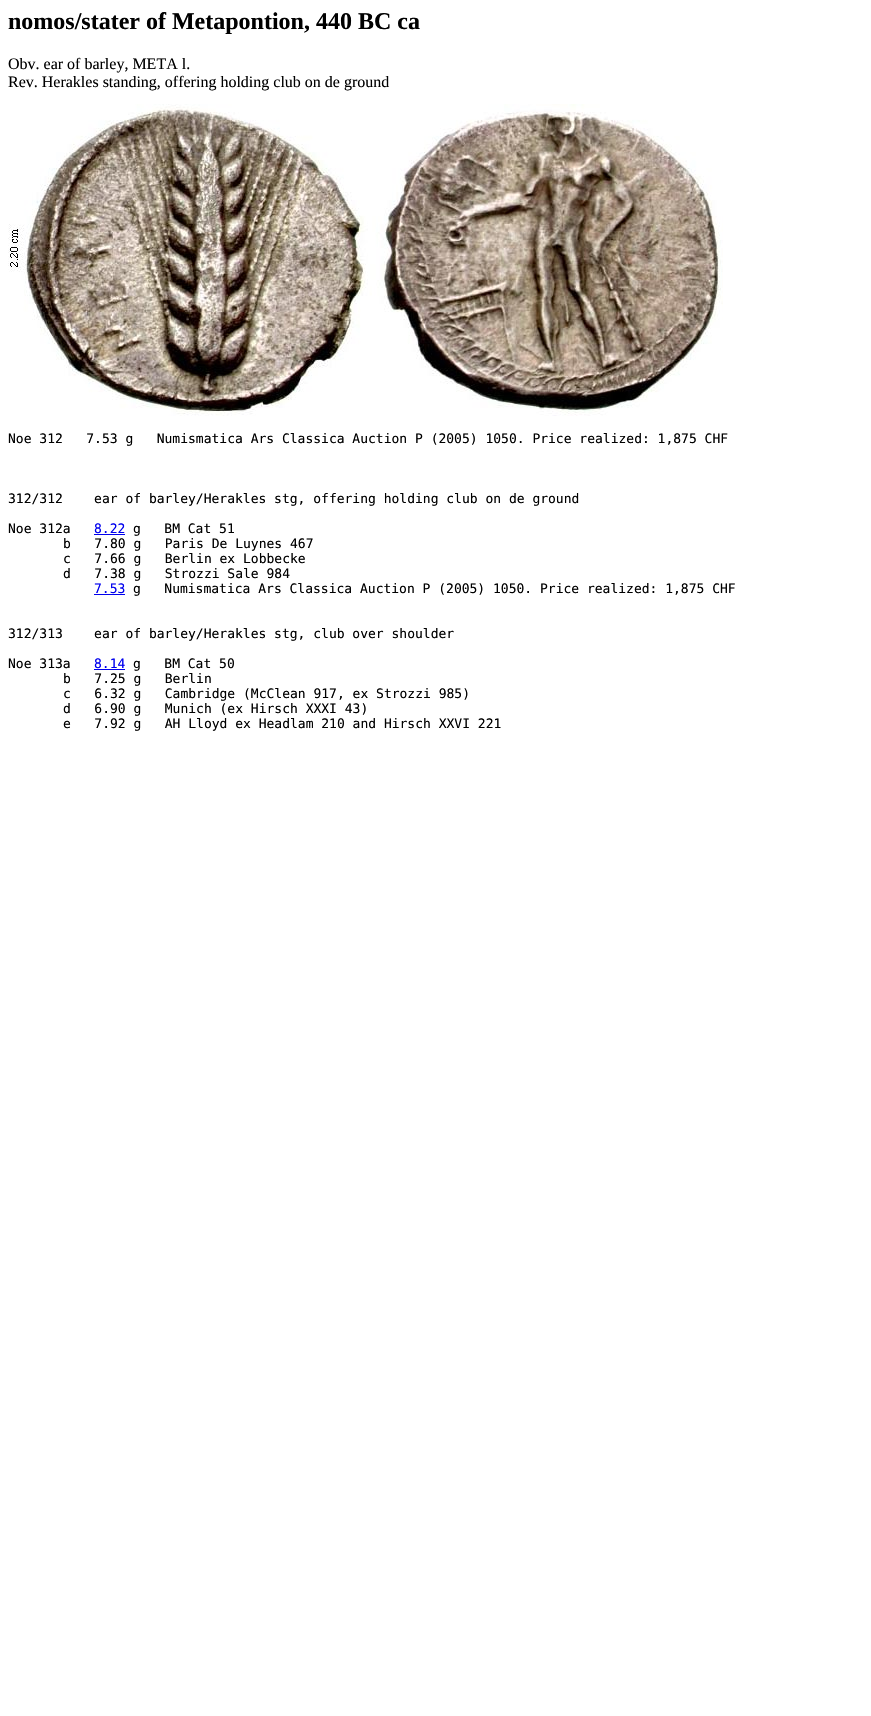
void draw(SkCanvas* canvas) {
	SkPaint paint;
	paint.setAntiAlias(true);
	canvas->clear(0xffffffff);
	SkFont f1(fontMgr->matchFamilyStyle("Liberation Serif", SkFontStyle::Bold()), 24);
	f1.setSubpixel(true);
	paint.setColor(0xff000000);
	canvas->drawString("nomos/stater of Metapontion, 440 BC ca", 8, 29, f1, paint);
	SkFont f2(fontMgr->matchFamilyStyle("Liberation Serif", SkFontStyle::Normal()), 16);
	f2.setSubpixel(true);
	canvas->drawString("Obv. ear of barley, META l.", 8, 69, f2, paint);
	canvas->drawString("Rev. Herakles standing, offering holding club on de ground", 8, 87, f2, paint);
	canvas->drawImageRect(SkImages::DeferredFromEncodedData(SkData::MakeFromFileName("img1.png")), SkRect::MakeXYWH(8, 104, 715, 312), SkSamplingOptions());
	SkFont f3(fontMgr->matchFamilyStyle("DejaVu Sans Mono", SkFontStyle::Normal()), 13);
	f3.setSubpixel(true);
	canvas->drawString("Noe 312   7.53 g   Numismatica Ars Classica Auction P (2005) 1050. Price realized: 1,875 CHF", 8, 443, f3, paint);
	canvas->drawString("312/312    ear of barley/Herakles stg, offering holding club on de ground", 8, 503, f3, paint);
	canvas->drawString("Noe 312a", 8, 533, f3, paint);
	paint.setColor(0xff0000ee);
	canvas->drawString("8.22", 94, 533, f3, paint);
	canvas->drawRect(SkRect::MakeXYWH(94, 534, 31, 1), paint);
	paint.setColor(0xff000000);
	canvas->drawString("g   BM Cat 51", 133, 533, f3, paint);
	canvas->drawString("b   7.80 g   Paris De Luynes 467", 63, 548, f3, paint);
	canvas->drawString("c   7.66 g   Berlin ex Lobbecke", 63, 563, f3, paint);
	canvas->drawString("d   7.38 g   Strozzi Sale 984", 63, 578, f3, paint);
	paint.setColor(0xff0000ee);
	canvas->drawString("7.53", 94, 593, f3, paint);
	canvas->drawRect(SkRect::MakeXYWH(94, 594, 31, 1), paint);
	paint.setColor(0xff000000);
	canvas->drawString("g   Numismatica Ars Classica Auction P (2005) 1050. Price realized: 1,875 CHF", 133, 593, f3, paint);
	canvas->drawString("312/313    ear of barley/Herakles stg, club over shoulder", 8, 638, f3, paint);
	canvas->drawString("Noe 313a", 8, 668, f3, paint);
	paint.setColor(0xff0000ee);
	canvas->drawString("8.14", 94, 668, f3, paint);
	canvas->drawRect(SkRect::MakeXYWH(94, 669, 31, 1), paint);
	paint.setColor(0xff000000);
	canvas->drawString("g   BM Cat 50", 133, 668, f3, paint);
	canvas->drawString("b   7.25 g   Berlin", 63, 683, f3, paint);
	canvas->drawString("c   6.32 g   Cambridge (McClean 917, ex Strozzi 985)", 63, 698, f3, paint);
	canvas->drawString("d   6.90 g   Munich (ex Hirsch XXXI 43)", 63, 713, f3, paint);
	canvas->drawString("e   7.92 g   AH Lloyd ex Headlam 210 and Hirsch XXVI 221", 63, 728, f3, paint);
}
